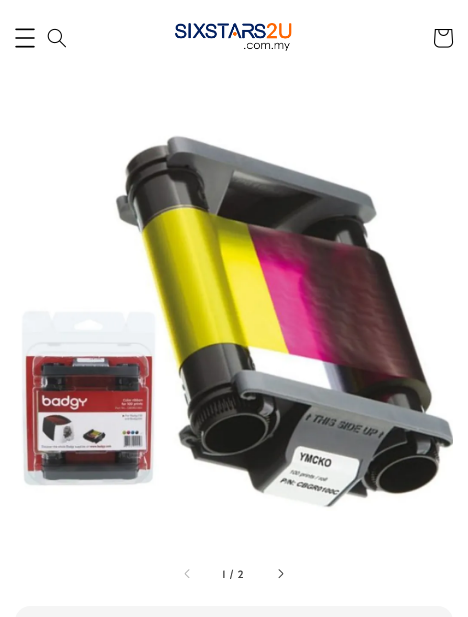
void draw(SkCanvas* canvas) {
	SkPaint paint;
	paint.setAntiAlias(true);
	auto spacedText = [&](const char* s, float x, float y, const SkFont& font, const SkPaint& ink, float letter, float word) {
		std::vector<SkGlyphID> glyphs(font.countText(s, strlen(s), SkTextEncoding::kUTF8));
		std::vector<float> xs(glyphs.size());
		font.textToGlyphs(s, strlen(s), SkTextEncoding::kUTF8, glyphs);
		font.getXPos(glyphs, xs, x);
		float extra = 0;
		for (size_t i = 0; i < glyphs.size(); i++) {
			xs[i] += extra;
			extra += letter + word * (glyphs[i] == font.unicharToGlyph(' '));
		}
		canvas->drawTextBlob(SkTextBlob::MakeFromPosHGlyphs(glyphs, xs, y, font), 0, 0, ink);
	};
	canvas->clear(0xffffffff);
	canvas->drawImageRect(SkImages::DeferredFromEncodedData(SkData::MakeFromFileName("img1.png")), SkRect::MakeXYWH(15, 28, 20, 20), SkSamplingOptions());
	canvas->drawImageRect(SkImages::DeferredFromEncodedData(SkData::MakeFromFileName("img2.png")), SkRect::MakeXYWH(47, 28, 19, 20), SkSamplingOptions());
	canvas->drawImageRect(SkImages::DeferredFromEncodedData(SkData::MakeFromFileName("img3.png")), SkRect::MakeXYWH(175, 23, 117, 28), SkSamplingOptions());
	canvas->drawImageRect(SkImages::DeferredFromEncodedData(SkData::MakeFromFileName("img4.png")), SkRect::MakeXYWH(434, 29, 20, 19), SkSamplingOptions());
	canvas->drawImageRect(SkImages::DeferredFromEncodedData(SkData::MakeFromFileName("img5.png")), SkRect::MakeXYWH(21, 135, 432, 376), SkSamplingOptions());
	canvas->drawImageRect(SkImages::DeferredFromEncodedData(SkData::MakeFromFileName("img6.png")), SkRect::MakeXYWH(184, 569, 6, 9), SkSamplingOptions());
	SkFont f1(fontMgr->matchFamilyStyle("Alata", SkFontStyle::Normal()), 10);
	f1.setSubpixel(true);
	paint.setColor(0xff404040);
	spacedText("1 / 2", 222, 578, f1, paint, 0.5, 0);
	canvas->drawImageRect(SkImages::DeferredFromEncodedData(SkData::MakeFromFileName("img7.png")), SkRect::MakeXYWH(278, 569, 6, 10), SkSamplingOptions());
	paint.setColor(0xfff5f5f5);
	canvas->drawRoundRect(SkRect::MakeXYWH(15, 606, 438, 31), 20, 20, paint);
}
